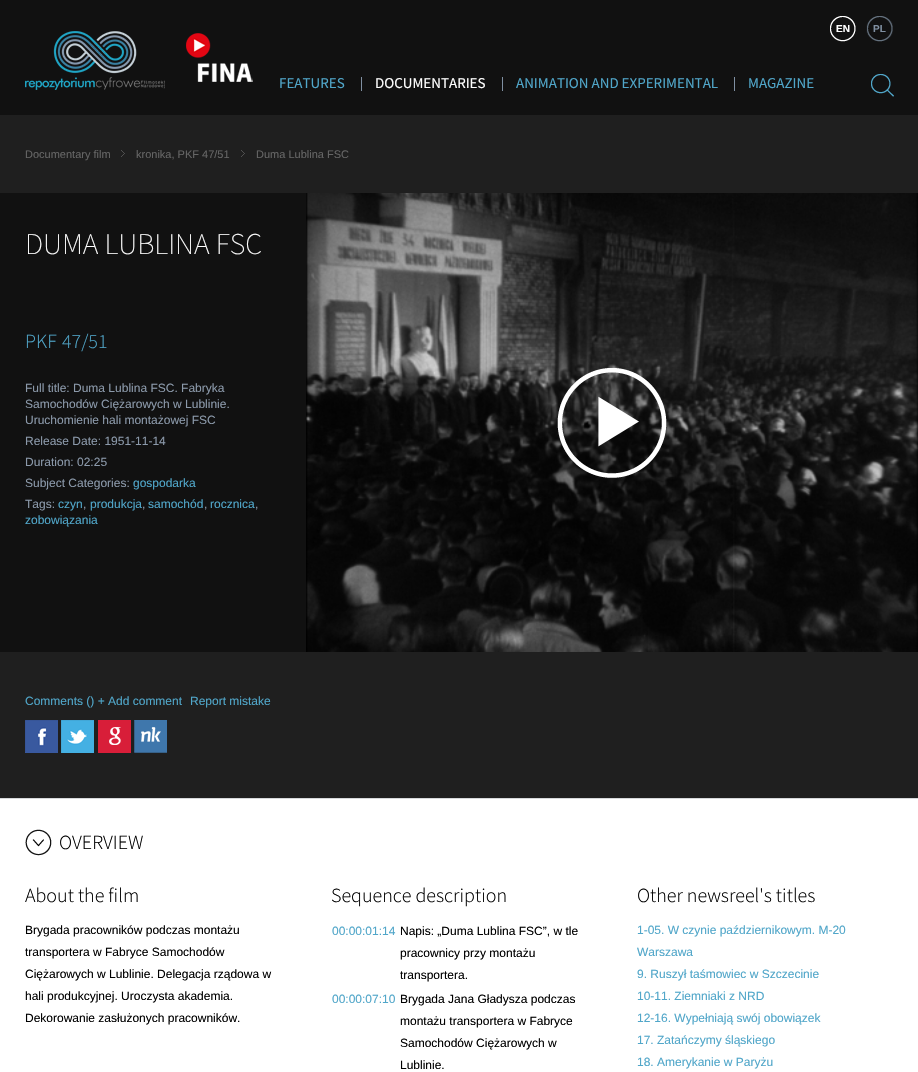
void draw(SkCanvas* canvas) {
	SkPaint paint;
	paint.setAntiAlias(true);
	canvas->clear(0xff111111);
	canvas->drawImageRect(SkImages::DeferredFromEncodedData(SkData::MakeFromFileName("img1.png")), SkRect::MakeXYWH(830, 16, 26, 26), SkSamplingOptions());
	canvas->drawImageRect(SkImages::DeferredFromEncodedData(SkData::MakeFromFileName("img2.png")), SkRect::MakeXYWH(866, 16, 27, 26), SkSamplingOptions());
	SkFont f1(fontMgr->matchFamilyStyle("Liberation Sans", SkFontStyle::Bold()), 10);
	f1.setSubpixel(true);
	paint.setColor(0xffffffff);
	canvas->drawString("EN", 836, 32, f1, paint);
	paint.setColor(0xff8090a2);
	canvas->drawString("PL", 873, 32, f1, paint);
	canvas->drawImageRect(SkImages::DeferredFromEncodedData(SkData::MakeFromFileName("img3.png")), SkRect::MakeXYWH(25, 31, 140, 59), SkSamplingOptions());
	canvas->drawImageRect(SkImages::DeferredFromEncodedData(SkData::MakeFromFileName("img4.png")), SkRect::MakeXYWH(186, 33, 67, 49), SkSamplingOptions());
	SkFont f2(fontMgr->matchFamilyStyle("Source Sans Pro", SkFontStyle::Normal()), 15);
	f2.setSubpixel(true);
	paint.setColor(0xff50a6c9);
	canvas->drawString("FEATURES", 279, 88, f2, paint);
	paint.setColor(0xffffffff);
	canvas->drawString("DOCUMENTARIES", 375, 88, f2, paint);
	paint.setColor(0xff8090a2);
	canvas->drawRect(SkRect::MakeXYWH(361, 77, 1, 14), paint);
	paint.setColor(0xff50a6c9);
	canvas->drawString("ANIMATION AND EXPERIMENTAL", 516, 88, f2, paint);
	paint.setColor(0xff8090a2);
	canvas->drawRect(SkRect::MakeXYWH(502, 77, 1, 14), paint);
	paint.setColor(0xff50a6c9);
	canvas->drawString("MAGAZINE", 748, 88, f2, paint);
	paint.setColor(0xff8090a2);
	canvas->drawRect(SkRect::MakeXYWH(734, 77, 1, 14), paint);
	canvas->drawImageRect(SkImages::DeferredFromEncodedData(SkData::MakeFromFileName("img5.png")), SkRect::MakeXYWH(871, 74, 23, 23), SkSamplingOptions());
	paint.setColor(0xff1f1f1f);
	canvas->drawRect(SkRect::MakeXYWH(0, 115, 918, 78), paint);
	SkFont f3(fontMgr->matchFamilyStyle("Liberation Sans", SkFontStyle::Normal()), 11);
	f3.setSubpixel(true);
	paint.setColor(0xff656565);
	canvas->drawString("Documentary film", 25, 158, f3, paint);
	canvas->drawImageRect(SkImages::DeferredFromEncodedData(SkData::MakeFromFileName("img6.png")), SkRect::MakeXYWH(121, 150, 4, 7), SkSamplingOptions());
	canvas->drawString("kronika, PKF 47/51", 136, 158, f3, paint);
	canvas->drawImageRect(SkImages::DeferredFromEncodedData(SkData::MakeFromFileName("img6.png")), SkRect::MakeXYWH(241, 150, 4, 7), SkSamplingOptions());
	canvas->drawString("Duma Lublina FSC", 256, 158, f3, paint);
	SkFont f4(fontMgr->matchFamilyStyle("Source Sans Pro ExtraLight", SkFontStyle(200, SkFontStyle::kNormal_Width, SkFontStyle::kUpright_Slant)), 30);
	f4.setSubpixel(true);
	paint.setColor(0xffffffff);
	canvas->drawString("DUMA LUBLINA FSC", 25, 254, f4, paint);
	canvas->drawImageRect(SkImages::DeferredFromEncodedData(SkData::MakeFromFileName("img7.png")), SkRect::MakeXYWH(306, 193, 612, 459), SkSamplingOptions());
	canvas->drawImageRect(SkImages::DeferredFromEncodedData(SkData::MakeFromFileName("img8.png")), SkRect::MakeXYWH(557, 368, 110, 110), SkSamplingOptions());
	SkFont f5(fontMgr->matchFamilyStyle("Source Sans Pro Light", SkFontStyle(300, SkFontStyle::kNormal_Width, SkFontStyle::kUpright_Slant)), 20);
	f5.setSubpixel(true);
	paint.setColor(0xff50a6c9);
	canvas->drawString("PKF", 25, 348, f5, paint);
	canvas->drawString("47/51", 62, 348, f5, paint);
	SkFont f6(fontMgr->matchFamilyStyle("Liberation Sans", SkFontStyle::Normal()), 12);
	f6.setSubpixel(true);
	paint.setColor(0xff8b99aa);
	canvas->drawString("Full title: Duma Lublina FSC. Fabryka", 25, 392, f6, paint);
	canvas->drawString("Samochodów Ciężarowych w Lublinie.", 25, 408, f6, paint);
	canvas->drawString("Uruchomienie hali montażowej FSC", 25, 424, f6, paint);
	canvas->drawString("Release Date: 1951-11-14", 25, 445, f6, paint);
	canvas->drawString("Duration: 02:25", 25, 466, f6, paint);
	canvas->drawString("Subject Categories:", 25, 487, f6, paint);
	paint.setColor(0xff50a6c9);
	canvas->drawString("gospodarka", 133, 487, f6, paint);
	paint.setColor(0xff8b99aa);
	canvas->drawString("Tags:", 25, 508, f6, paint);
	paint.setColor(0xff50a6c9);
	canvas->drawString("czyn", 58, 508, f6, paint);
	paint.setColor(0xff8b99aa);
	canvas->drawString(",", 83, 508, f6, paint);
	paint.setColor(0xff50a6c9);
	canvas->drawString("produkcja", 90, 508, f6, paint);
	paint.setColor(0xff8b99aa);
	canvas->drawString(",", 142, 508, f6, paint);
	paint.setColor(0xff50a6c9);
	canvas->drawString("samochód", 148, 508, f6, paint);
	paint.setColor(0xff8b99aa);
	canvas->drawString(",", 204, 508, f6, paint);
	paint.setColor(0xff50a6c9);
	canvas->drawString("rocznica", 210, 508, f6, paint);
	paint.setColor(0xff8b99aa);
	canvas->drawString(",", 255, 508, f6, paint);
	paint.setColor(0xff50a6c9);
	canvas->drawString("zobowiązania", 25, 524, f6, paint);
	paint.setColor(0xff1f1f1f);
	canvas->drawRect(SkRect::MakeXYWH(0, 652, 918, 146), paint);
	paint.setColor(0xff50a6c9);
	canvas->drawString("Comments () + Add comment", 25, 705, f6, paint);
	canvas->drawString("Report mistake", 190, 705, f6, paint);
	canvas->drawImageRect(SkImages::DeferredFromEncodedData(SkData::MakeFromFileName("img9.png")), SkRect::MakeXYWH(25, 720, 33, 33), SkSamplingOptions());
	canvas->drawImageRect(SkImages::DeferredFromEncodedData(SkData::MakeFromFileName("img10.png")), SkRect::MakeXYWH(61, 720, 33, 33), SkSamplingOptions());
	canvas->drawImageRect(SkImages::DeferredFromEncodedData(SkData::MakeFromFileName("img11.png")), SkRect::MakeXYWH(98, 720, 33, 33), SkSamplingOptions());
	canvas->drawImageRect(SkImages::DeferredFromEncodedData(SkData::MakeFromFileName("img12.png")), SkRect::MakeXYWH(134, 720, 33, 33), SkSamplingOptions());
	paint.setColor(0xffffffff);
	canvas->drawRect(SkRect::MakeXYWH(0, 799, 918, 273), paint);
	paint.setColor(0xffd6d8db);
	canvas->drawRect(SkRect::MakeXYWH(0, 798, 918, 1), paint);
	canvas->drawImageRect(SkImages::DeferredFromEncodedData(SkData::MakeFromFileName("img13.png")), SkRect::MakeXYWH(25, 829, 27, 27), SkSamplingOptions());
	paint.setColor(0xff000000);
	canvas->drawString("OVERVIEW", 59, 849, f5, paint);
	canvas->drawString("About the film", 25, 902, f5, paint);
	canvas->drawString("Brygada pracowników podczas montażu", 25, 934, f6, paint);
	canvas->drawString("transportera w Fabryce Samochodów", 25, 956, f6, paint);
	canvas->drawString("Ciężarowych w Lublinie. Delegacja rządowa w", 25, 978, f6, paint);
	canvas->drawString("hali produkcyjnej. Uroczysta akademia.", 25, 1000, f6, paint);
	canvas->drawString("Dekorowanie zasłużonych pracowników.", 25, 1022, f6, paint);
	canvas->drawString("Sequence description", 331, 902, f5, paint);
	paint.setColor(0xff50a6c9);
	canvas->drawString("00:00:01:14", 332, 935, f6, paint);
	paint.setColor(0xff000000);
	canvas->drawString("Napis: „Duma Lublina FSC”, w tle", 400, 935, f6, paint);
	canvas->drawString("pracownicy przy montażu", 400, 957, f6, paint);
	canvas->drawString("transportera.", 400, 979, f6, paint);
	paint.setColor(0xff50a6c9);
	canvas->drawString("00:00:07:10", 332, 1003, f6, paint);
	paint.setColor(0xff000000);
	canvas->drawString("Brygada Jana Gładysza podczas", 400, 1003, f6, paint);
	canvas->drawString("montażu transportera w Fabryce", 400, 1025, f6, paint);
	canvas->drawString("Samochodów Ciężarowych w", 400, 1047, f6, paint);
	canvas->drawString("Lublinie.", 400, 1069, f6, paint);
	canvas->drawString("Other newsreel's titles", 637, 902, f5, paint);
	paint.setColor(0xff50a6c9);
	canvas->drawString("1-05. W czynie październikowym. M-20", 637, 934, f6, paint);
	canvas->drawString("Warszawa", 637, 956, f6, paint);
	canvas->drawString("9. Ruszył taśmowiec w Szczecinie", 637, 978, f6, paint);
	canvas->drawString("10-11. Ziemniaki z NRD", 637, 1000, f6, paint);
	canvas->drawString("12-16. Wypełniają swój obowiązek", 637, 1022, f6, paint);
	canvas->drawString("17. Zatańczymy śląskiego", 637, 1044, f6, paint);
	canvas->drawString("18. Amerykanie w Paryżu", 637, 1066, f6, paint);
}
